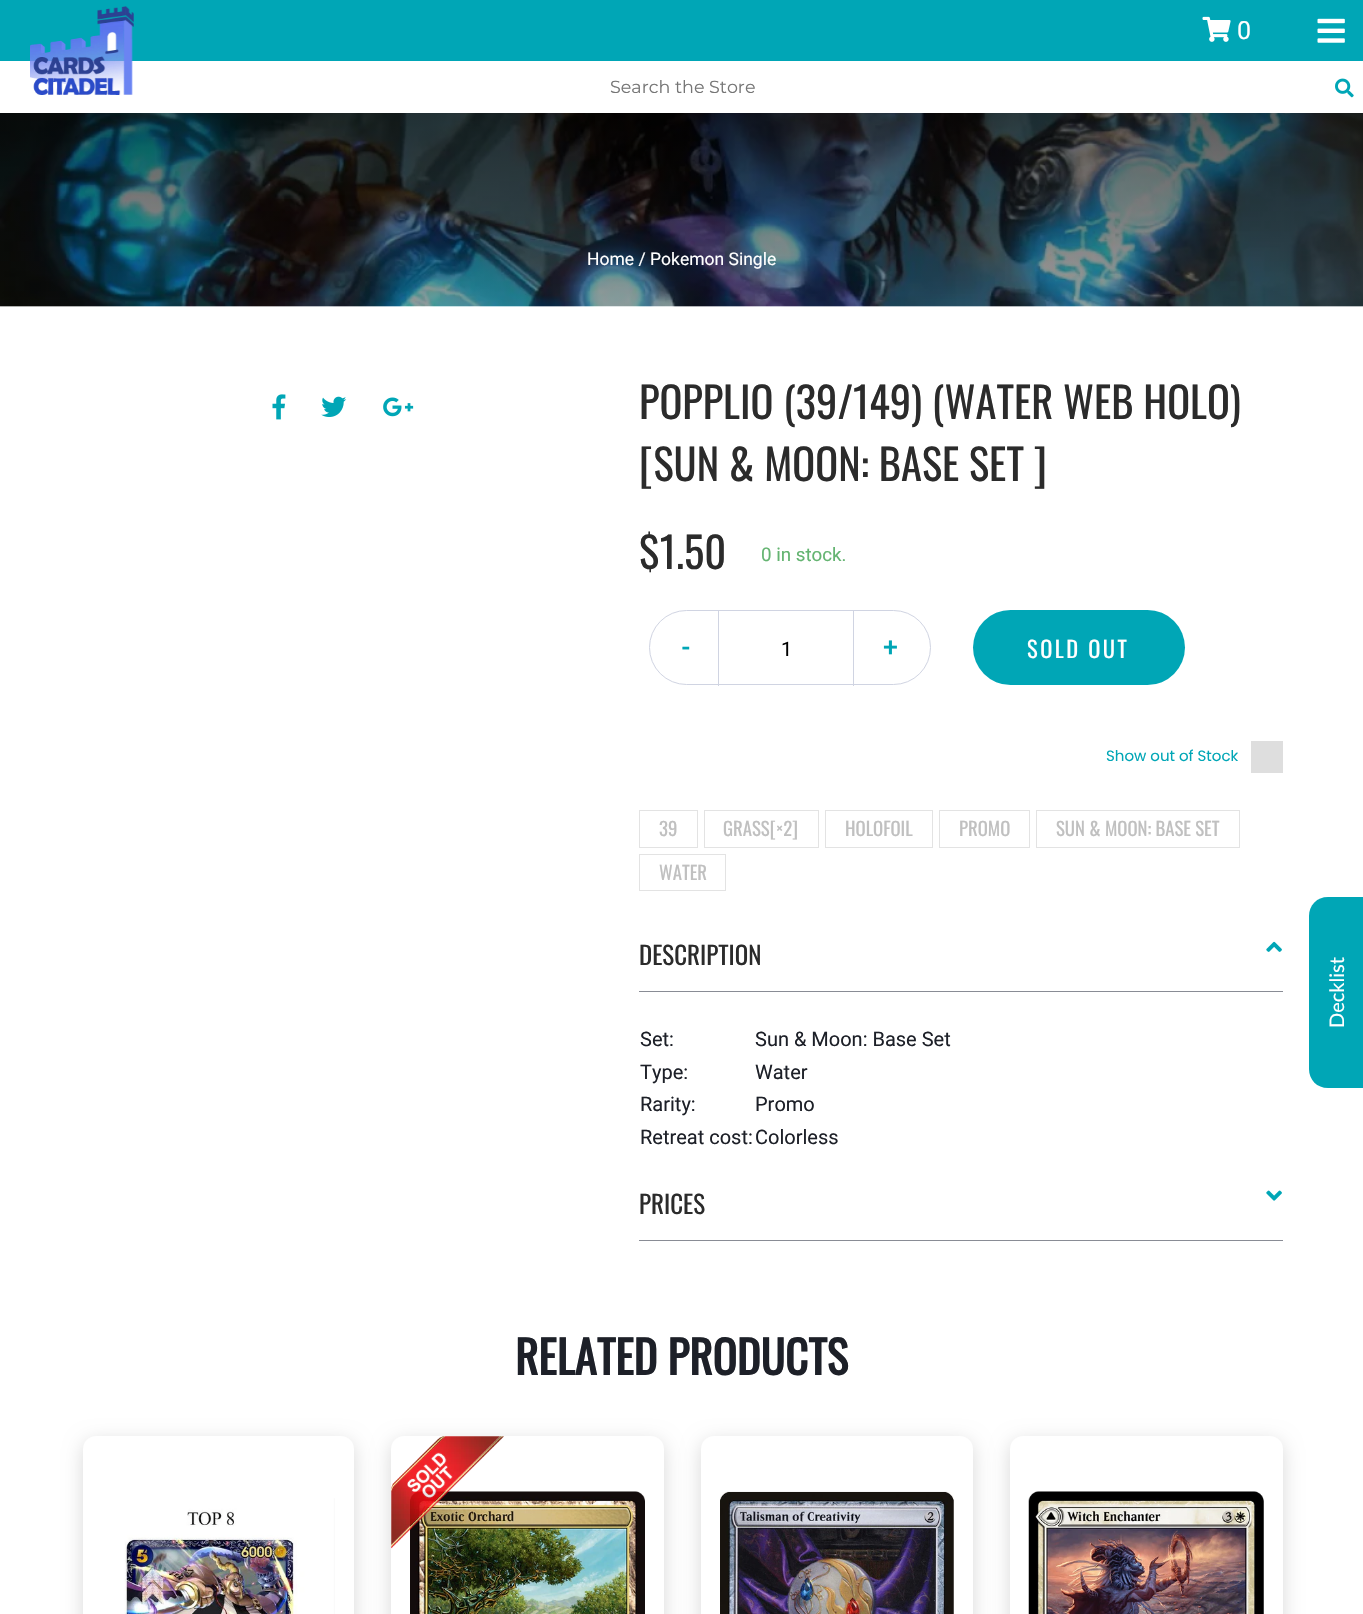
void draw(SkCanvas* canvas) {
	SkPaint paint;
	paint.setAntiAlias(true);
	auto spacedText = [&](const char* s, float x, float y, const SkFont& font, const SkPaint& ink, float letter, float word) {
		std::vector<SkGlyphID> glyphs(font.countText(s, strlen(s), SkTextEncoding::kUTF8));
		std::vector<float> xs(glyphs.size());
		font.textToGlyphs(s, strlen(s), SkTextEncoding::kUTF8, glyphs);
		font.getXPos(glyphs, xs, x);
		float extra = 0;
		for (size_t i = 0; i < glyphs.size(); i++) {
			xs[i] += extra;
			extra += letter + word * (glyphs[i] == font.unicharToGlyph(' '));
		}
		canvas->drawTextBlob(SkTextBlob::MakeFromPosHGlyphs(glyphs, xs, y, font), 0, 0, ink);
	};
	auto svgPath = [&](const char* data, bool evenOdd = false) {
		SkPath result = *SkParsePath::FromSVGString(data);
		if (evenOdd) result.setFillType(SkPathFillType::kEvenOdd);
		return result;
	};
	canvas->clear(0xffffffff);
	paint.setColor(0xff00a6b6);
	canvas->drawRect(SkRect::MakeXYWH(0, 0, 1363, 61), paint);
	canvas->drawImageRect(SkImages::DeferredFromEncodedData(SkData::MakeFromFileName("img1.png")), SkRect::MakeXYWH(30, 6, 104, 89), SkSamplingOptions());
	canvas->drawImageRect(SkImages::DeferredFromEncodedData(SkData::MakeFromFileName("img2.png")), SkRect::MakeXYWH(1317, 18, 28, 25), SkSamplingOptions());
	canvas->drawImageRect(SkImages::DeferredFromEncodedData(SkData::MakeFromFileName("img3.png")), SkRect::MakeXYWH(1202, 16, 29, 26), SkSamplingOptions());
	SkFont f1(fontMgr->matchFamilyStyle("Roboto", SkFontStyle::Normal()), 25);
	f1.setSubpixel(true);
	paint.setColor(0xffffffff);
	canvas->drawString("0", 1237, 39, f1, paint);
	SkFont f2(fontMgr->matchFamilyStyle("Montserrat", SkFontStyle::Normal()), 17.5);
	f2.setSubpixel(true);
	paint.setColor(0xff757575);
	canvas->drawString("Search the Store", 610, 93, f2, paint);
	canvas->drawImageRect(SkImages::DeferredFromEncodedData(SkData::MakeFromFileName("img4.png")), SkRect::MakeXYWH(1335, 78, 19, 20), SkSamplingOptions());
	canvas->drawImageRect(SkImages::DeferredFromEncodedData(SkData::MakeFromFileName("img5.png")), SkRect::MakeXYWH(0, 113, 1363, 194), SkSamplingOptions());
	SkFont f3(fontMgr->matchFamilyStyle("Roboto", SkFontStyle::Normal()), 17.5);
	f3.setSubpixel(true);
	paint.setColor(0xffffffff);
	canvas->drawString("Home / Pokemon Single", 587, 265, f3, paint);
	canvas->drawImageRect(SkImages::DeferredFromEncodedData(SkData::MakeFromFileName("img6.png")), SkRect::MakeXYWH(272, 394, 14, 26), SkSamplingOptions());
	canvas->drawImageRect(SkImages::DeferredFromEncodedData(SkData::MakeFromFileName("img7.png")), SkRect::MakeXYWH(321, 396, 26, 21), SkSamplingOptions());
	canvas->drawImageRect(SkImages::DeferredFromEncodedData(SkData::MakeFromFileName("img8.png")), SkRect::MakeXYWH(383, 397, 31, 20), SkSamplingOptions());
	SkFont f4(fontMgr->matchFamilyStyle("Oswald", SkFontStyle::Normal()), 42.5);
	f4.setSubpixel(true);
	paint.setColor(0xff2b2b2b);
	canvas->drawString("POPPLIO (39/149) (WATER WEB HOLO)", 639, 419, f4, paint);
	canvas->drawString("[SUN & MOON: BASE SET ]", 639, 481, f4, paint);
	canvas->drawString("$1.50", 639, 569, f4, paint);
	SkFont f5(fontMgr->matchFamilyStyle("Roboto", SkFontStyle::Normal()), 18.75);
	f5.setSubpixel(true);
	paint.setColor(0xff64b471);
	canvas->drawString("0 in stock.", 761, 561, f5, paint);
	paint.setStroke(true);
	paint.setStrokeWidth(1);
	paint.setColor(0xffd0d4e2);
	canvas->drawRoundRect(SkRect::MakeXYWH(649.5, 610.5, 281, 74), 37, 37, paint);
	SkFont f6(fontMgr->matchFamilyStyle("Roboto", SkFontStyle::Bold()), 25);
	f6.setSubpixel(true);
	paint.setStroke(false);
	paint.setColor(0xff00a6b6);
	canvas->drawString("-", 682, 656, f6, paint);
	paint.setColor(0xffd0d4e2);
	canvas->drawRect(SkRect::MakeXYWH(853, 611, 1, 75), paint);
	canvas->drawRect(SkRect::MakeXYWH(718, 611, 1, 75), paint);
	SkFont f7(fontMgr->matchFamilyStyle("Roboto", SkFontStyle::Normal()), 20);
	f7.setSubpixel(true);
	paint.setColor(0xff000000);
	canvas->drawString("1", 781, 656, f7, paint);
	paint.setColor(0xff00a6b6);
	canvas->drawString("+", 883, 656, f6, paint);
	canvas->drawRoundRect(SkRect::MakeXYWH(973, 610, 212, 75), 37.5, 37.5, paint);
	SkFont f8(fontMgr->matchFamilyStyle("Oswald", SkFontStyle::Normal()), 22.5);
	f8.setSubpixel(true);
	paint.setColor(0xffffffff);
	spacedText("SOLD OUT", 1027, 658, f8, paint, 2.5, 0);
	SkFont f9(fontMgr->matchFamilyStyle("Poppins", SkFontStyle::Normal()), 15);
	f9.setSubpixel(true);
	paint.setColor(0xff00a6b6);
	canvas->drawString("Show out of Stock", 1106, 761, f9, paint);
	paint.setColor(0xffdedede);
	canvas->drawRect(SkRect::MakeXYWH(1251, 741, 32, 32), paint);
	paint.setStroke(true);
	paint.setColor(0xffe3e3e3);
	canvas->drawRect(SkRect::MakeXYWH(639.5, 810.5, 58, 37), paint);
	SkFont f10(fontMgr->matchFamilyStyle("Oswald", SkFontStyle::Normal()), 18.75);
	f10.setSubpixel(true);
	paint.setStroke(false);
	paint.setColor(0xffc0c0c0);
	canvas->drawString("39", 659, 836, f10, paint);
	paint.setStroke(true);
	paint.setColor(0xffe3e3e3);
	canvas->drawRect(SkRect::MakeXYWH(704.5, 810.5, 114, 37), paint);
	paint.setStroke(false);
	paint.setColor(0xffc0c0c0);
	canvas->drawString("GRASS[×2]", 723, 836, f10, paint);
	paint.setStroke(true);
	paint.setColor(0xffe3e3e3);
	canvas->drawRect(SkRect::MakeXYWH(825.5, 810.5, 107, 37), paint);
	paint.setStroke(false);
	paint.setColor(0xffc0c0c0);
	canvas->drawString("HOLOFOIL", 845, 836, f10, paint);
	paint.setStroke(true);
	paint.setColor(0xffe3e3e3);
	canvas->drawRect(SkRect::MakeXYWH(939.5, 810.5, 90, 37), paint);
	paint.setStroke(false);
	paint.setColor(0xffc0c0c0);
	canvas->drawString("PROMO", 959, 836, f10, paint);
	paint.setStroke(true);
	paint.setColor(0xffe3e3e3);
	canvas->drawRect(SkRect::MakeXYWH(1036.5, 810.5, 203, 37), paint);
	paint.setStroke(false);
	paint.setColor(0xffc0c0c0);
	canvas->drawString("SUN & MOON: BASE SET", 1056, 836, f10, paint);
	paint.setStroke(true);
	paint.setColor(0xffe3e3e3);
	canvas->drawRect(SkRect::MakeXYWH(639.5, 854.5, 86, 36), paint);
	paint.setStroke(false);
	paint.setColor(0xffc0c0c0);
	canvas->drawString("WATER", 659, 880, f10, paint);
	paint.setColor(0xff898c95);
	canvas->drawRect(SkRect::MakeXYWH(639, 991, 644, 1), paint);
	SkFont f11(fontMgr->matchFamilyStyle("Oswald", SkFontStyle::Normal()), 25);
	f11.setSubpixel(true);
	paint.setColor(0xff2b2b2b);
	canvas->drawString("DESCRIPTION", 639, 965, f11, paint);
	canvas->drawImageRect(SkImages::DeferredFromEncodedData(SkData::MakeFromFileName("img9.png")), SkRect::MakeXYWH(1266, 941, 16, 11), SkSamplingOptions());
	paint.setColor(0xff1d2028);
	canvas->drawString("Set:", 640, 1046, f7, paint);
	canvas->drawString("Sun & Moon: Base Set", 755, 1046, f7, paint);
	canvas->drawString("Type:", 640, 1079, f7, paint);
	canvas->drawString("Water", 755, 1079, f7, paint);
	canvas->drawString("Rarity:", 640, 1111, f7, paint);
	canvas->drawString("Promo", 755, 1111, f7, paint);
	canvas->drawString("Retreat cost:", 640, 1144, f7, paint);
	canvas->drawString("Colorless", 755, 1144, f7, paint);
	paint.setColor(0xff898c95);
	canvas->drawRect(SkRect::MakeXYWH(639, 1240, 644, 1), paint);
	paint.setColor(0xff2b2b2b);
	canvas->drawString("PRICES", 639, 1214, f11, paint);
	canvas->drawImageRect(SkImages::DeferredFromEncodedData(SkData::MakeFromFileName("img10.png")), SkRect::MakeXYWH(1266, 1190, 16, 11), SkSamplingOptions());
	SkFont f12(fontMgr->matchFamilyStyle("Oswald", SkFontStyle::Bold()), 45);
	f12.setSubpixel(true);
	paint.setColor(0xff1d2028);
	canvas->drawString("RELATED PRODUCTS", 515, 1375, f12, paint);
	paint.setColor(0x26000000);
	paint.setMaskFilter(SkMaskFilter::MakeBlur(kNormal_SkBlurStyle, 9.5));
	canvas->drawRoundRect(SkRect::MakeXYWH(83, 1441, 271, 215), 13, 13, paint);
	paint.setMaskFilter(nullptr);
	paint.setColor(0xffffffff);
	canvas->drawRoundRect(SkRect::MakeXYWH(83, 1436, 271, 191), 13, 13, paint);
	canvas->drawImageRect(SkImages::DeferredFromEncodedData(SkData::MakeFromFileName("img11.png")), SkRect::MakeXYWH(124, 1498, 211, 116), SkSamplingOptions());
	paint.setColor(0x26000000);
	paint.setMaskFilter(SkMaskFilter::MakeBlur(kNormal_SkBlurStyle, 9.5));
	canvas->drawRoundRect(SkRect::MakeXYWH(391, 1441, 273, 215), 13, 13, paint);
	paint.setMaskFilter(nullptr);
	paint.setColor(0xffffffff);
	canvas->drawRoundRect(SkRect::MakeXYWH(391, 1436, 273, 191), 13, 13, paint);
	canvas->drawImageRect(SkImages::DeferredFromEncodedData(SkData::MakeFromFileName("img13.png")), SkRect::MakeXYWH(410, 1491, 235, 123), SkSamplingOptions());
	canvas->drawImageRect(SkImages::DeferredFromEncodedData(SkData::MakeFromFileName("img12.png")), SkRect::MakeXYWH(391, 1436, 113, 113), SkSamplingOptions());
	paint.setColor(0x26000000);
	paint.setMaskFilter(SkMaskFilter::MakeBlur(kNormal_SkBlurStyle, 9.5));
	canvas->drawRoundRect(SkRect::MakeXYWH(701, 1441, 272, 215), 13, 13, paint);
	paint.setMaskFilter(nullptr);
	paint.setColor(0xffffffff);
	canvas->drawRoundRect(SkRect::MakeXYWH(701, 1436, 272, 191), 13, 13, paint);
	canvas->drawImageRect(SkImages::DeferredFromEncodedData(SkData::MakeFromFileName("img14.png")), SkRect::MakeXYWH(720, 1491, 234, 123), SkSamplingOptions());
	paint.setColor(0x26000000);
	paint.setMaskFilter(SkMaskFilter::MakeBlur(kNormal_SkBlurStyle, 9.5));
	canvas->drawRoundRect(SkRect::MakeXYWH(1010, 1441, 273, 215), 13, 13, paint);
	paint.setMaskFilter(nullptr);
	paint.setColor(0xffffffff);
	canvas->drawRoundRect(SkRect::MakeXYWH(1010, 1436, 273, 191), 13, 13, paint);
	canvas->drawImageRect(SkImages::DeferredFromEncodedData(SkData::MakeFromFileName("img15.png")), SkRect::MakeXYWH(1028, 1491, 236, 123), SkSamplingOptions());
	paint.setColor(0xff00a6b6);
	canvas->drawPath(svgPath("M1309 1069V916C1309 905 1317 897 1328 897H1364V1088H1328C1317 1088 1309 1080 1309 1069Z"), paint);
	SkFont f13(fontMgr->matchFamilyStyle("Lato", SkFontStyle::Normal()), 20);
	f13.setSubpixel(true);
	paint.setColor(0xffffffff);
	canvas->save();
	canvas->rotate(-90, 1344, 1028);
	canvas->drawString("Decklist", 1344, 1028, f13, paint);
	canvas->restore();
}
